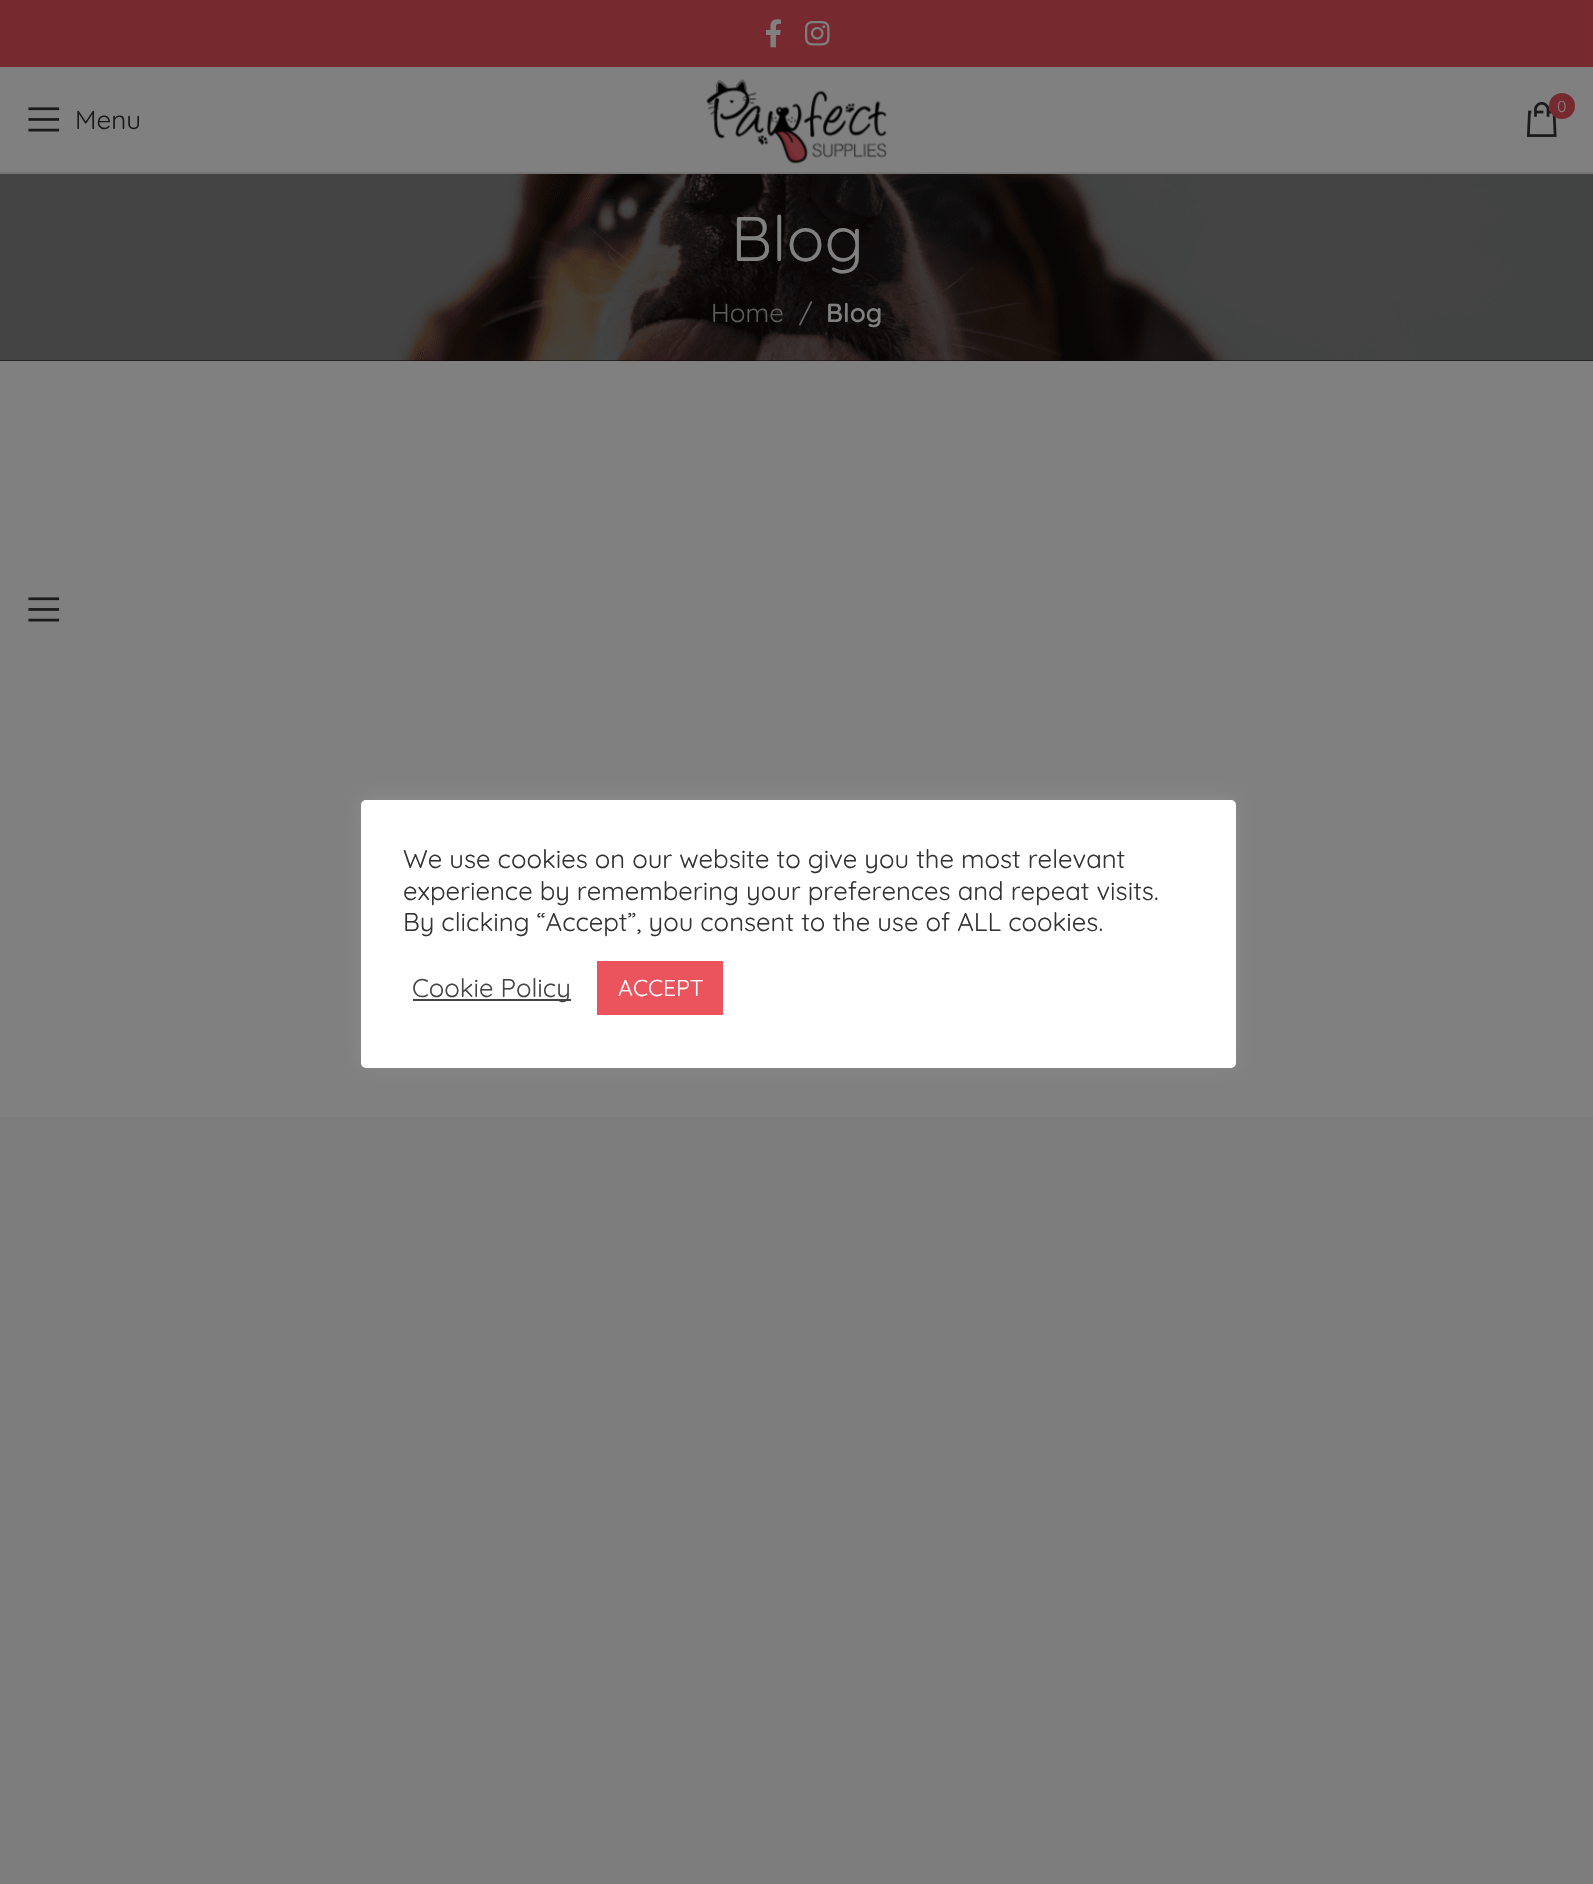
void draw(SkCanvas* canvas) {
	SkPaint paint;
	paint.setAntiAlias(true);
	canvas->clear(0xff808080);
	paint.setColor(0xff762a2f);
	canvas->drawRect(SkRect::MakeXYWH(0, 0, 1593, 67), paint);
	canvas->drawImageRect(SkImages::DeferredFromEncodedData(SkData::MakeFromFileName("img1.png")), SkRect::MakeXYWH(766, 19, 15, 29), SkSamplingOptions());
	canvas->drawImageRect(SkImages::DeferredFromEncodedData(SkData::MakeFromFileName("img2.png")), SkRect::MakeXYWH(805, 21, 25, 25), SkSamplingOptions());
	paint.setColor(0xff747474);
	canvas->drawRect(SkRect::MakeXYWH(0, 172, 1593, 2), paint);
	canvas->drawImageRect(SkImages::DeferredFromEncodedData(SkData::MakeFromFileName("img3.png")), SkRect::MakeXYWH(706, 79, 181, 85), SkSamplingOptions());
	canvas->drawImageRect(SkImages::DeferredFromEncodedData(SkData::MakeFromFileName("img4.png")), SkRect::MakeXYWH(1526, 101, 31, 36), SkSamplingOptions());
	paint.setColor(0xff762a2f);
	canvas->drawCircle(1562, 106, 13, paint);
	SkFont f1(fontMgr->matchFamilyStyle("Quicksand", SkFontStyle::Normal()), 16);
	f1.setSubpixel(true);
	paint.setColor(0xff808080);
	canvas->drawString("0", 1557, 112, f1, paint);
	canvas->drawImageRect(SkImages::DeferredFromEncodedData(SkData::MakeFromFileName("img5.png")), SkRect::MakeXYWH(28, 107, 32, 25), SkSamplingOptions());
	SkFont f2(fontMgr->matchFamilyStyle("Quicksand", SkFontStyle::Normal()), 26);
	f2.setSubpixel(true);
	paint.setColor(0xff1a1a1a);
	canvas->drawString("Menu", 75, 129, f2, paint);
	paint.setColor(0xff050505);
	canvas->drawRect(SkRect::MakeXYWH(0, 360, 1593, 1), paint);
	canvas->drawImageRect(SkImages::DeferredFromEncodedData(SkData::MakeFromFileName("img6.png")), SkRect::MakeXYWH(0, 174, 1593, 187), SkSamplingOptions());
	SkFont f3(fontMgr->matchFamilyStyle("Quicksand", SkFontStyle::Normal()), 63);
	f3.setSubpixel(true);
	paint.setColor(0xff808080);
	canvas->drawString("Blog", 731, 261, f3, paint);
	paint.setColor(0xff5d5c5c);
	canvas->drawString("Home", 711, 322, f2, paint);
	paint.setColor(0xff696969);
	canvas->drawString("/", 799, 322, f2, paint);
	SkFont f4(fontMgr->matchFamilyStyle("Quicksand", SkFontStyle(600, SkFontStyle::kNormal_Width, SkFontStyle::kUpright_Slant)), 26);
	f4.setSubpixel(true);
	paint.setColor(0xff808080);
	canvas->drawString("Blog", 826, 322, f4, paint);
	paint.setColor(0xff7d7d7d);
	canvas->drawRect(SkRect::MakeXYWH(0, 1117, 1593, 767), paint);
	canvas->drawImageRect(SkImages::DeferredFromEncodedData(SkData::MakeFromFileName("img7.png")), SkRect::MakeXYWH(28, 597, 32, 25), SkSamplingOptions());
	paint.setColor(0x4dacabab);
	paint.setMaskFilter(SkMaskFilter::MakeBlur(kNormal_SkBlurStyle, 9));
	canvas->drawRoundRect(SkRect::MakeXYWH(361, 798, 875, 268), 5, 5, paint);
	paint.setMaskFilter(nullptr);
	paint.setColor(0xffffffff);
	canvas->drawRoundRect(SkRect::MakeXYWH(361, 800, 875, 268), 5, 5, paint);
	SkFont f5(fontMgr->matchFamilyStyle("Quicksand", SkFontStyle::Normal()), 25.7);
	f5.setSubpixel(true);
	paint.setColor(0xff333333);
	canvas->drawString("We use cookies on our website to give you the most relevant", 403, 868, f5, paint);
	canvas->drawString("experience by remembering your preferences and repeat visits.", 403, 900, f5, paint);
	canvas->drawString("By clicking “Accept”, you consent to the use of ALL cookies.", 403, 931, f5, paint);
	paint.setColor(0xff444444);
	canvas->drawRect(SkRect::MakeXYWH(413, 999, 158, 2), paint);
	canvas->drawString("Cookie Policy", 412, 997, f5, paint);
	paint.setColor(0xffeb535d);
	canvas->drawRect(SkRect::MakeXYWH(597, 961, 126, 54), paint);
	SkFont f6(fontMgr->matchFamilyStyle("Quicksand", SkFontStyle::Normal()), 23);
	f6.setSubpixel(true);
	paint.setColor(0xffffffff);
	canvas->drawString("ACCEPT", 618, 996, f6, paint);
}
